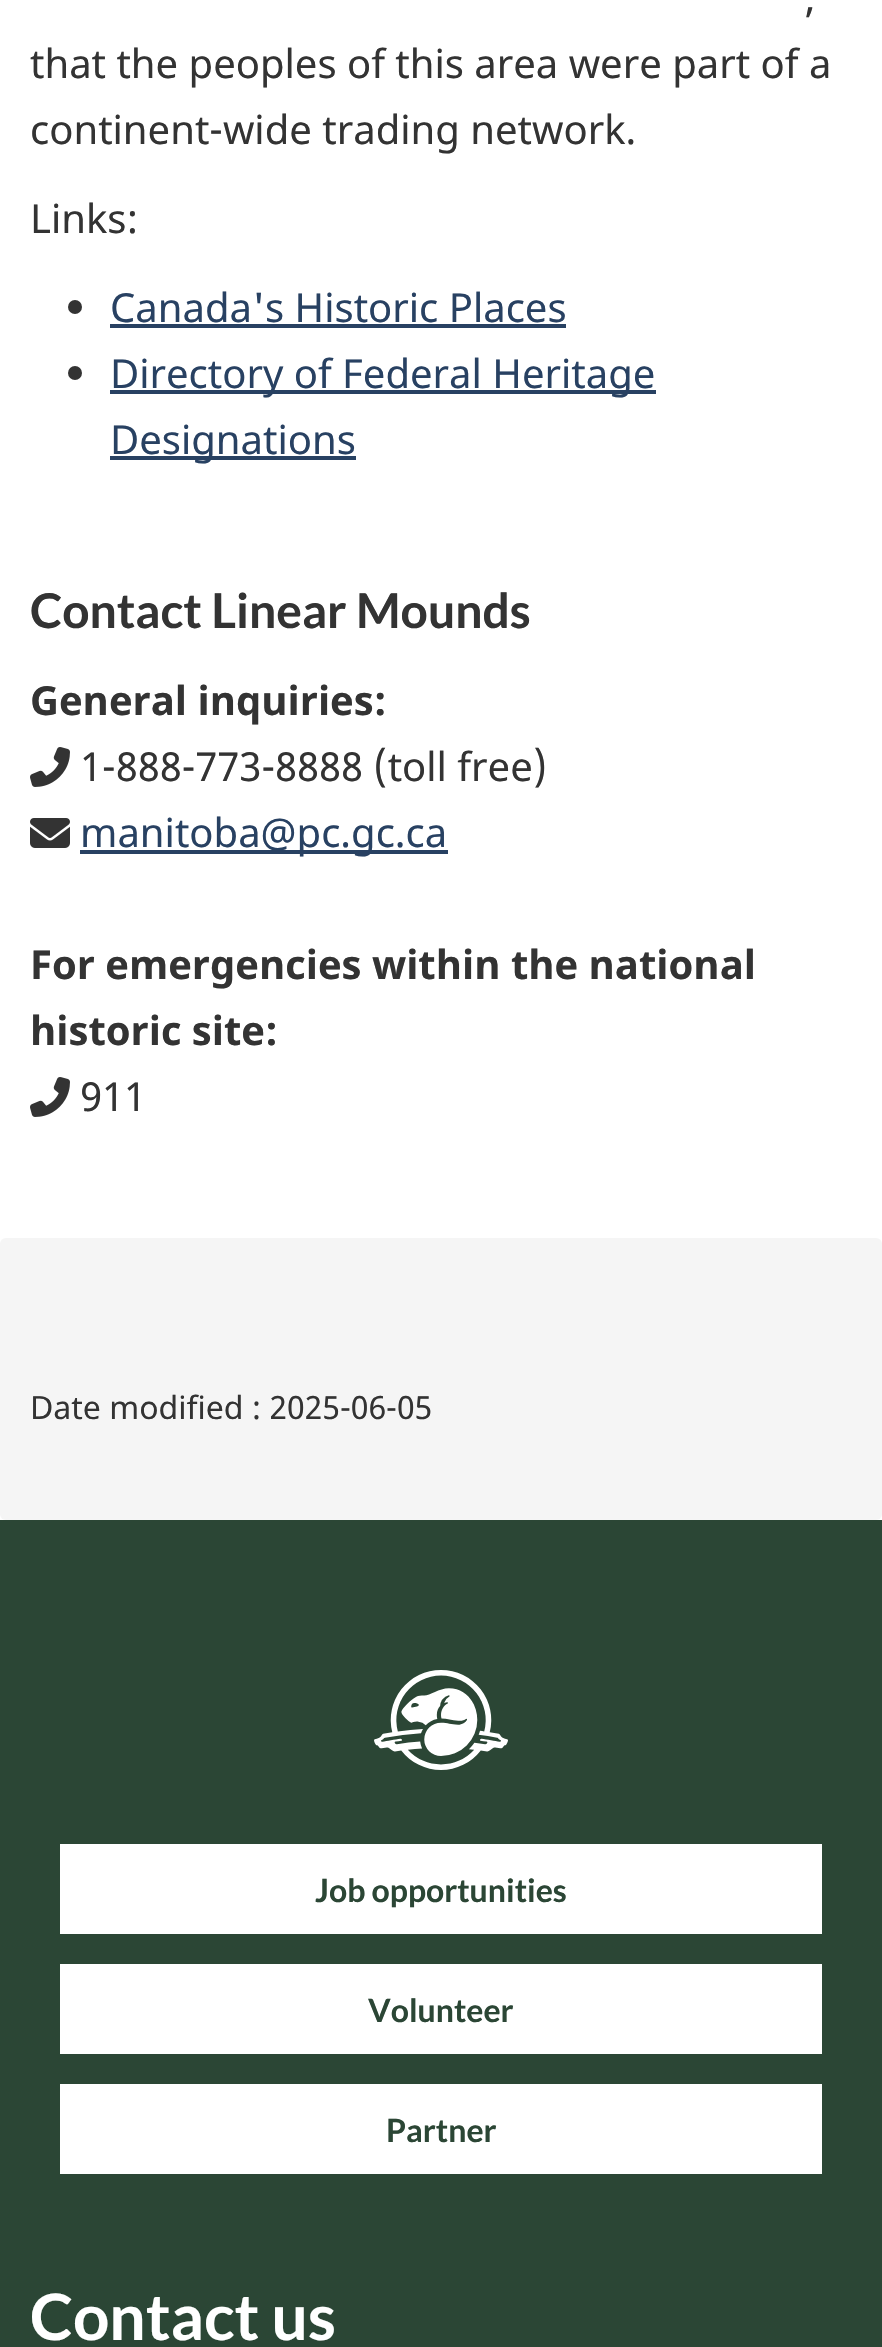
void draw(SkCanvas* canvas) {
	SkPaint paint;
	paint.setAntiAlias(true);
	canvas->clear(0xffffffff);
	SkFont f1(fontMgr->matchFamilyStyle("Noto Sans", SkFontStyle::Normal()), 40);
	f1.setSubpixel(true);
	paint.setColor(0xff333333);
	canvas->drawString(",", 805, 12, f1, paint);
	canvas->drawString("that the peoples of this area were part of a", 30, 78, f1, paint);
	canvas->drawString("continent-wide trading network.", 30, 144, f1, paint);
	canvas->drawString("Links:", 30, 233, f1, paint);
	canvas->drawCircle(75, 307, 7, paint);
	paint.setColor(0xff284162);
	canvas->drawString("Canada's Historic Places", 110, 322, f1, paint);
	canvas->drawRect(SkRect::MakeXYWH(110, 324, 456, 4), paint);
	paint.setColor(0xff333333);
	canvas->drawCircle(75, 373, 7, paint);
	paint.setColor(0xff284162);
	canvas->drawRect(SkRect::MakeXYWH(110, 390, 546, 4), paint);
	canvas->drawString("Directory of Federal Heritage", 110, 388, f1, paint);
	canvas->drawRect(SkRect::MakeXYWH(110, 456, 246, 4), paint);
	canvas->drawString("Designations", 110, 454, f1, paint);
	SkFont f2(fontMgr->matchFamilyStyle("Lato", SkFontStyle::Bold()), 48);
	f2.setSubpixel(true);
	paint.setColor(0xff333333);
	canvas->drawString("Contact Linear Mounds", 30, 628, f2, paint);
	SkFont f3(fontMgr->matchFamilyStyle("Noto Sans", SkFontStyle::Bold()), 40);
	f3.setSubpixel(true);
	canvas->drawString("General inquiries:", 30, 715, f3, paint);
	canvas->drawImageRect(SkImages::DeferredFromEncodedData(SkData::MakeFromFileName("img1.png")), SkRect::MakeXYWH(30, 747, 40, 40), SkSamplingOptions());
	canvas->drawString("1-888-773-8888 (toll free)", 80, 781, f1, paint);
	canvas->drawImageRect(SkImages::DeferredFromEncodedData(SkData::MakeFromFileName("img2.png")), SkRect::MakeXYWH(30, 818, 40, 30), SkSamplingOptions());
	paint.setColor(0xff284162);
	canvas->drawRect(SkRect::MakeXYWH(80, 850, 368, 4), paint);
	canvas->drawString("manitoba@pc.gc.ca", 80, 847, f1, paint);
	paint.setColor(0xff333333);
	canvas->drawString("For emergencies within the national", 30, 979, f3, paint);
	canvas->drawString("historic site:", 30, 1045, f3, paint);
	canvas->drawImageRect(SkImages::DeferredFromEncodedData(SkData::MakeFromFileName("img1.png")), SkRect::MakeXYWH(30, 1077, 40, 40), SkSamplingOptions());
	canvas->drawString("911", 80, 1111, f1, paint);
	paint.setColor(0xfff5f5f5);
	canvas->drawRoundRect(SkRect::MakeXYWH(0, 1238, 882, 282), 6, 6, paint);
	SkFont f4(fontMgr->matchFamilyStyle("Noto Sans", SkFontStyle::Normal()), 32);
	f4.setSubpixel(true);
	paint.setColor(0xff333333);
	canvas->drawString("Date modified : 2025-06-05", 30, 1419, f4, paint);
	paint.setColor(0xff2b4635);
	canvas->drawRect(SkRect::MakeXYWH(0, 1520, 882, 827), paint);
	canvas->drawImageRect(SkImages::DeferredFromEncodedData(SkData::MakeFromFileName("img3.png")), SkRect::MakeXYWH(374, 1670, 134, 100), SkSamplingOptions());
	paint.setColor(0xffffffff);
	canvas->drawRect(SkRect::MakeXYWH(60, 1844, 762, 90), paint);
	SkFont f5(fontMgr->matchFamilyStyle("Lato", SkFontStyle::Bold()), 32);
	f5.setSubpixel(true);
	paint.setColor(0xff2b4635);
	canvas->drawString("Job opportunities", 315, 1902, f5, paint);
	paint.setColor(0xffffffff);
	canvas->drawRect(SkRect::MakeXYWH(60, 1964, 762, 90), paint);
	paint.setColor(0xff2b4635);
	canvas->drawString("Volunteer", 368, 2022, f5, paint);
	paint.setColor(0xffffffff);
	canvas->drawRect(SkRect::MakeXYWH(60, 2084, 762, 90), paint);
	paint.setColor(0xff2b4635);
	canvas->drawString("Partner", 386, 2142, f5, paint);
	SkFont f6(fontMgr->matchFamilyStyle("Lato", SkFontStyle::Bold()), 64);
	f6.setSubpixel(true);
	paint.setColor(0xffffffff);
	canvas->drawString("Contact us", 30, 2340, f6, paint);
}
